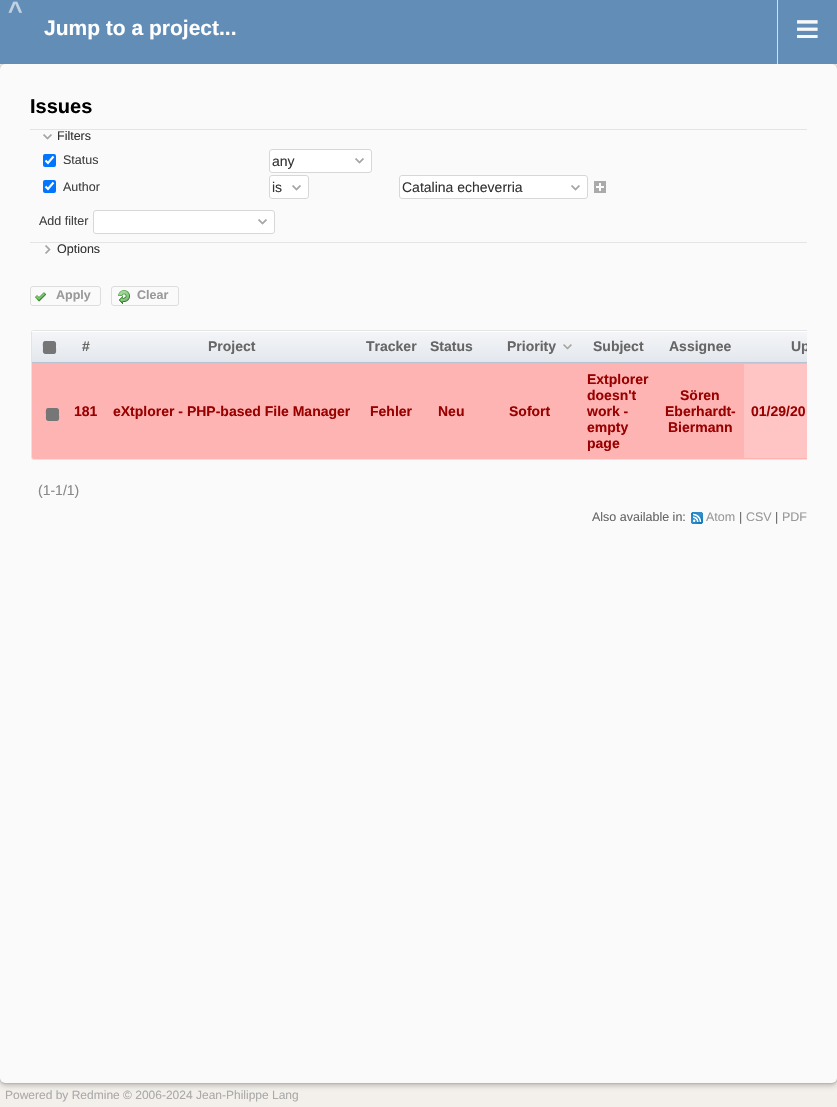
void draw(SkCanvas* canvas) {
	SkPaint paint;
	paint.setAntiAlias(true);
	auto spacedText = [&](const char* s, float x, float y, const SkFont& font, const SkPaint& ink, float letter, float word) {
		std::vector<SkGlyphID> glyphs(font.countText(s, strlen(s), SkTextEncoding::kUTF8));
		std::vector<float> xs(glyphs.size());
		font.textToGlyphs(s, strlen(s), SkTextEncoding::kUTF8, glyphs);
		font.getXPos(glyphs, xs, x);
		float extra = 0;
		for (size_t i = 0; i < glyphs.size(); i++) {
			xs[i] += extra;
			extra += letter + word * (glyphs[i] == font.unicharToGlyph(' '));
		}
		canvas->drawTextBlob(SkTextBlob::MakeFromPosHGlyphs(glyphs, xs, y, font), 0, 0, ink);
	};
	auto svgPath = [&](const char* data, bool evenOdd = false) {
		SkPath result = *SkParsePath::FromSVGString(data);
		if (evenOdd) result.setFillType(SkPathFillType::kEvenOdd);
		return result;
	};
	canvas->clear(0xfff3f0eb);
	paint.setColor(0x33000000);
	paint.setMaskFilter(SkMaskFilter::MakeBlur(kNormal_SkBlurStyle, 2.5));
	canvas->drawRoundRect(SkRect::MakeXYWH(0, 67, 837, 1019), 5, 5, paint);
	paint.setMaskFilter(nullptr);
	paint.setColor(0x4d000000);
	paint.setMaskFilter(SkMaskFilter::MakeBlur(kNormal_SkBlurStyle, 1));
	canvas->drawRoundRect(SkRect::MakeXYWH(0, 64, 837, 1019), 5, 5, paint);
	paint.setMaskFilter(nullptr);
	paint.setColor(0xff628db6);
	canvas->drawRect(SkRect::MakeXYWH(0, 0, 837, 64), paint);
	SkFont f1(fontMgr->matchFamilyStyle("Liberation Sans", SkFontStyle::Bold()), 25);
	f1.setSubpixel(true);
	paint.setColor(0xffc0d1e2);
	spacedText("^", 8, 19, f1, paint, 4, 0);
	SkFont f2(fontMgr->matchFamilyStyle("Liberation Sans", SkFontStyle::Bold()), 21);
	f2.setSubpixel(true);
	paint.setColor(0xffffffff);
	canvas->drawString("Jump to a project...", 44, 35, f2, paint);
	paint.setColor(0xffdddddd);
	canvas->drawRect(SkRect::MakeXYWH(777, 0, 1, 64), paint);
	SkFont f3(fontMgr->matchFamilyStyle("Liberation Sans", SkFontStyle::Normal()), 42);
	f3.setSubpixel(true);
	paint.setColor(0xfff8f8f8);
	canvas->drawString("≡", 795, 43, f3, paint);
	paint.setColor(0xfffafafa);
	canvas->drawRoundRect(SkRect::MakeXYWH(0, 64, 837, 1019), 5, 5, paint);
	SkFont f4(fontMgr->matchFamilyStyle("Liberation Sans", SkFontStyle::Bold()), 20);
	f4.setSubpixel(true);
	paint.setColor(0xff000000);
	canvas->drawString("Issues", 30, 113, f4, paint);
	paint.setColor(0xffe4e4e4);
	canvas->drawRect(SkRect::MakeXYWH(30, 129, 777, 1), paint);
	canvas->drawImageRect(SkImages::DeferredFromEncodedData(SkData::MakeFromFileName("img1.png")), SkRect::MakeXYWH(43, 134, 9, 6), SkSamplingOptions());
	SkFont f5(fontMgr->matchFamilyStyle("Liberation Sans", SkFontStyle::Normal()), 12.5);
	f5.setSubpixel(true);
	paint.setColor(0xff333333);
	canvas->drawString("Filters", 57, 140, f5, paint);
	paint.setColor(0xff0075ff);
	canvas->drawRoundRect(SkRect::MakeXYWH(43, 154, 13, 13), 2, 2, paint);
	paint.setStroke(true);
	paint.setStrokeWidth(2.1);
	paint.setColor(0xffffffff);
	canvas->drawPath(svgPath("M45.5 160.5L48 163L53.5 156.5"), paint);
	paint.setStroke(false);
	paint.setColor(0xff404040);
	canvas->drawString("Status", 63, 164, f5, paint);
	paint.setColor(0xffffffff);
	canvas->drawRoundRect(SkRect::MakeXYWH(269, 149, 103, 24), 3, 3, paint);
	canvas->drawImageRect(SkImages::DeferredFromEncodedData(SkData::MakeFromFileName("img2.png")), SkRect::MakeXYWH(355, 158, 9, 6), SkSamplingOptions());
	paint.setStroke(true);
	paint.setStrokeWidth(1);
	paint.setColor(0xffd7d7d7);
	canvas->drawRoundRect(SkRect::MakeXYWH(269.5, 149.5, 102, 23), 2.5, 2.5, paint);
	SkFont f6(fontMgr->matchFamilyStyle("Liberation Sans", SkFontStyle::Normal()), 14);
	f6.setSubpixel(true);
	paint.setStroke(false);
	paint.setColor(0xff333333);
	canvas->drawString("any", 272, 166, f6, paint);
	paint.setColor(0xff0075ff);
	canvas->drawRoundRect(SkRect::MakeXYWH(43, 180, 13, 13), 2, 2, paint);
	paint.setStroke(true);
	paint.setStrokeWidth(2.1);
	paint.setColor(0xffffffff);
	canvas->drawPath(svgPath("M45.5 186.5L48 189L53.5 182.5"), paint);
	paint.setStroke(false);
	paint.setColor(0xff404040);
	canvas->drawString("Author", 63, 191, f5, paint);
	paint.setColor(0xffffffff);
	canvas->drawRoundRect(SkRect::MakeXYWH(269, 175, 40, 24), 3, 3, paint);
	canvas->drawImageRect(SkImages::DeferredFromEncodedData(SkData::MakeFromFileName("img2.png")), SkRect::MakeXYWH(292, 185, 9, 6), SkSamplingOptions());
	paint.setStroke(true);
	paint.setStrokeWidth(1);
	paint.setColor(0xffd7d7d7);
	canvas->drawRoundRect(SkRect::MakeXYWH(269.5, 175.5, 39, 23), 2.5, 2.5, paint);
	paint.setStroke(false);
	paint.setColor(0xff333333);
	canvas->drawString("is", 272, 192, f6, paint);
	paint.setColor(0xffffffff);
	canvas->drawRoundRect(SkRect::MakeXYWH(399, 175, 189, 24), 3, 3, paint);
	canvas->drawImageRect(SkImages::DeferredFromEncodedData(SkData::MakeFromFileName("img2.png")), SkRect::MakeXYWH(571, 185, 9, 6), SkSamplingOptions());
	paint.setStroke(true);
	paint.setColor(0xffd7d7d7);
	canvas->drawRoundRect(SkRect::MakeXYWH(399.5, 175.5, 188, 23), 2.5, 2.5, paint);
	paint.setStroke(false);
	paint.setColor(0xff333333);
	canvas->drawString("Catalina echeverria", 402, 192, f6, paint);
	canvas->drawImageRect(SkImages::DeferredFromEncodedData(SkData::MakeFromFileName("img3.png")), SkRect::MakeXYWH(594, 181, 12, 12), SkSamplingOptions());
	paint.setColor(0xff404040);
	canvas->drawString("Add filter", 39, 225, f5, paint);
	paint.setColor(0xffffffff);
	canvas->drawRoundRect(SkRect::MakeXYWH(93, 210, 182, 24), 3, 3, paint);
	canvas->drawImageRect(SkImages::DeferredFromEncodedData(SkData::MakeFromFileName("img2.png")), SkRect::MakeXYWH(258, 219, 9, 6), SkSamplingOptions());
	paint.setStroke(true);
	paint.setColor(0xffd7d7d7);
	canvas->drawRoundRect(SkRect::MakeXYWH(93.5, 210.5, 181, 23), 2.5, 2.5, paint);
	paint.setStroke(false);
	paint.setColor(0xffe4e4e4);
	canvas->drawRect(SkRect::MakeXYWH(30, 242, 777, 1), paint);
	canvas->drawImageRect(SkImages::DeferredFromEncodedData(SkData::MakeFromFileName("img4.png")), SkRect::MakeXYWH(45, 245, 6, 9), SkSamplingOptions());
	paint.setColor(0xff333333);
	canvas->drawString("Options", 57, 253, f5, paint);
	canvas->drawImageRect(SkImages::DeferredFromEncodedData(SkData::MakeFromFileName("img5.png")), SkRect::MakeXYWH(35, 292, 11, 10), SkSamplingOptions());
	paint.setStroke(true);
	paint.setColor(0xffdddddd);
	canvas->drawRoundRect(SkRect::MakeXYWH(30.5, 286.5, 70, 19), 2.5, 2.5, paint);
	SkFont f7(fontMgr->matchFamilyStyle("Liberation Sans", SkFontStyle::Bold()), 12.5);
	f7.setSubpixel(true);
	paint.setStroke(false);
	paint.setColor(0xff999999);
	canvas->drawString("Apply", 56, 299, f7, paint);
	canvas->drawImageRect(SkImages::DeferredFromEncodedData(SkData::MakeFromFileName("img6.png")), SkRect::MakeXYWH(118, 290, 12, 14), SkSamplingOptions());
	paint.setStroke(true);
	paint.setColor(0xffdddddd);
	canvas->drawRoundRect(SkRect::MakeXYWH(111.5, 286.5, 67, 19), 2.5, 2.5, paint);
	paint.setStroke(false);
	paint.setColor(0xff999999);
	canvas->drawString("Clear", 137, 299, f7, paint);
	canvas->save();
	canvas->clipRect(SkRect::MakeXYWH(30, 329, 777, 136));
	paint.setColor(0xffe4e4e4);
	canvas->drawPath(svgPath("M34 330C32 330 31 331 31 333V457C31 459 32 460 34 460H837V459H34C33 459 32 458 32 457V333C32 332 33 331 34 331H837V330Z"), paint);
	canvas->restore();
	{
		const SkColor colors[] = {0xfff4f6f8, 0xffe3e7ed};
		const float stops[] = {0, 1};
		const SkPoint ends[] = {{49, 331}, {49, 362}};
		paint.setShader(SkGradientShader::MakeLinear(ends, colors, stops, 2, SkTileMode::kClamp));
		paint.setAlpha(255);
	}
	canvas->drawPath(svgPath("M34 331H66V362H32V333C32 332 33 331 34 331Z"), paint);
	paint.setShader(nullptr);
	paint.setColor(0xffffffff);
	canvas->drawRect(SkRect::MakeXYWH(32, 331, 775, 1), paint);
	paint.setColor(0xffb9c2d0);
	canvas->drawRect(SkRect::MakeXYWH(32, 362, 775, 1), paint);
	paint.setColor(0xff767676);
	canvas->drawPath(svgPath("M45 341H52.5C57 341 56 343.5 56 347.5C56 349.5 57 354 54 354H46.5C42 354 43 351.5 43 347.5C43 346 42 341 45 341Z"), paint);
	{
		const SkColor colors[] = {0xfff4f6f8, 0xffe3e7ed};
		const float stops[] = {0, 1};
		const SkPoint ends[] = {{86, 331}, {86, 362}};
		paint.setShader(SkGradientShader::MakeLinear(ends, colors, stops, 2, SkTileMode::kClamp));
		paint.setAlpha(255);
	}
	canvas->drawRect(SkRect::MakeXYWH(66, 332, 39, 30), paint);
	SkFont f8(fontMgr->matchFamilyStyle("Liberation Sans", SkFontStyle::Bold()), 14);
	f8.setSubpixel(true);
	paint.setShader(nullptr);
	paint.setColor(0xff666666);
	canvas->drawString("#", 82, 351, f8, paint);
	{
		const SkColor colors[] = {0xfff4f6f8, 0xffe3e7ed};
		const float stops[] = {0, 1};
		const SkPoint ends[] = {{232, 331}, {232, 362}};
		paint.setShader(SkGradientShader::MakeLinear(ends, colors, stops, 2, SkTileMode::kClamp));
		paint.setAlpha(255);
	}
	canvas->drawRect(SkRect::MakeXYWH(105, 332, 254, 30), paint);
	paint.setShader(nullptr);
	paint.setColor(0xff666666);
	canvas->drawString("Project", 208, 351, f8, paint);
	{
		const SkColor colors[] = {0xfff4f6f8, 0xffe3e7ed};
		const float stops[] = {0, 1};
		const SkPoint ends[] = {{391, 331}, {391, 362}};
		paint.setShader(SkGradientShader::MakeLinear(ends, colors, stops, 2, SkTileMode::kClamp));
		paint.setAlpha(255);
	}
	canvas->drawRect(SkRect::MakeXYWH(359, 332, 64, 30), paint);
	paint.setShader(nullptr);
	paint.setColor(0xff666666);
	canvas->drawString("Tracker", 366, 351, f8, paint);
	{
		const SkColor colors[] = {0xfff4f6f8, 0xffe3e7ed};
		const float stops[] = {0, 1};
		const SkPoint ends[] = {{452, 331}, {452, 362}};
		paint.setShader(SkGradientShader::MakeLinear(ends, colors, stops, 2, SkTileMode::kClamp));
		paint.setAlpha(255);
	}
	canvas->drawRect(SkRect::MakeXYWH(423, 332, 57, 30), paint);
	paint.setShader(nullptr);
	paint.setColor(0xff666666);
	canvas->drawString("Status", 430, 351, f8, paint);
	{
		const SkColor colors[] = {0xfff4f6f8, 0xffe3e7ed};
		const float stops[] = {0, 1};
		const SkPoint ends[] = {{530, 331}, {530, 362}};
		paint.setShader(SkGradientShader::MakeLinear(ends, colors, stops, 2, SkTileMode::kClamp));
		paint.setAlpha(255);
	}
	canvas->drawRect(SkRect::MakeXYWH(480, 332, 99, 30), paint);
	paint.setShader(nullptr);
	paint.setColor(0xff666666);
	canvas->drawString("Priority", 507, 351, f8, paint);
	canvas->drawImageRect(SkImages::DeferredFromEncodedData(SkData::MakeFromFileName("img7.png")), SkRect::MakeXYWH(563, 344, 9, 6), SkSamplingOptions());
	{
		const SkColor colors[] = {0xfff4f6f8, 0xffe3e7ed};
		const float stops[] = {0, 1};
		const SkPoint ends[] = {{618, 331}, {618, 362}};
		paint.setShader(SkGradientShader::MakeLinear(ends, colors, stops, 2, SkTileMode::kClamp));
		paint.setAlpha(255);
	}
	canvas->drawRect(SkRect::MakeXYWH(579, 332, 78, 30), paint);
	paint.setShader(nullptr);
	paint.setColor(0xff666666);
	canvas->drawString("Subject", 593, 351, f8, paint);
	{
		const SkColor colors[] = {0xfff4f6f8, 0xffe3e7ed};
		const float stops[] = {0, 1};
		const SkPoint ends[] = {{700, 331}, {700, 362}};
		paint.setShader(SkGradientShader::MakeLinear(ends, colors, stops, 2, SkTileMode::kClamp));
		paint.setAlpha(255);
	}
	canvas->drawRect(SkRect::MakeXYWH(657, 332, 86, 30), paint);
	paint.setShader(nullptr);
	paint.setColor(0xff666666);
	canvas->drawString("Assignee", 669, 351, f8, paint);
	{
		const SkColor colors[] = {0xfff4f6f8, 0xffe3e7ed};
		const float stops[] = {0, 1};
		const SkPoint ends[] = {{819, 331}, {819, 362}};
		paint.setShader(SkGradientShader::MakeLinear(ends, colors, stops, 2, SkTileMode::kClamp));
		paint.setAlpha(255);
	}
	canvas->drawRect(SkRect::MakeXYWH(743, 332, 64, 30), paint);
	canvas->save();
	canvas->clipRect(SkRect::MakeXYWH(30, 329, 777, 136));
	paint.setShader(nullptr);
	paint.setColor(0xff666666);
	canvas->drawString("Up", 791, 351, f8, paint);
	canvas->restore();
	paint.setColor(0xffffc4c4);
	canvas->drawPath(svgPath("M32 363H807V459H34C33 459 32 458 32 457Z"), paint);
	paint.setColor(0xffffb4b4);
	canvas->drawPath(svgPath("M32 363V457C32 458 33 459 34 459H66V363Z"), paint);
	paint.setColor(0xff767676);
	canvas->drawPath(svgPath("M48 408H55.5C60 408 59 410.5 59 414.5C59 416.5 60 421 57 421H49.5C45 421 46 418.5 46 414.5C46 413 45 408 48 408Z"), paint);
	paint.setColor(0xffffb4b4);
	canvas->drawRect(SkRect::MakeXYWH(66, 363, 677, 96), paint);
	paint.setColor(0xff990000);
	canvas->drawString("181", 74, 416, f8, paint);
	canvas->drawString("eXtplorer - PHP-based File Manager", 113, 416, f8, paint);
	canvas->drawString("Fehler", 370, 416, f8, paint);
	canvas->drawString("Neu", 438, 416, f8, paint);
	canvas->drawString("Sofort", 509, 416, f8, paint);
	canvas->drawString("Extplorer", 587, 384, f8, paint);
	canvas->drawString("doesn't", 587, 400, f8, paint);
	canvas->drawString("work -", 587, 416, f8, paint);
	canvas->drawString("empty", 587, 432, f8, paint);
	canvas->drawString("page", 587, 448, f8, paint);
	canvas->drawString("Sören", 680, 400, f8, paint);
	canvas->drawString("Eberhardt-", 665, 416, f8, paint);
	canvas->drawString("Biermann", 668, 432, f8, paint);
	canvas->save();
	canvas->clipRect(SkRect::MakeXYWH(30, 329, 777, 136));
	paint.setColor(0xffffb4b4);
	canvas->drawPath(svgPath("M743 363V459H837V458H744V364H837V363Z"), paint);
	canvas->restore();
	paint.setColor(0xff990000);
	canvas->drawString("01/29/20", 751, 416, f8, paint);
	paint.setColor(0xff888888);
	canvas->drawString("(1-1/1)", 38, 495, f6, paint);
	paint.setColor(0xff666666);
	canvas->drawString("Also available in:", 592, 521, f5, paint);
	canvas->drawImageRect(SkImages::DeferredFromEncodedData(SkData::MakeFromFileName("img8.png")), SkRect::MakeXYWH(691, 512, 12, 12), SkSamplingOptions());
	paint.setColor(0xff999999);
	canvas->drawString("Atom", 706, 521, f5, paint);
	paint.setColor(0xff666666);
	canvas->drawString("|", 739, 521, f5, paint);
	paint.setColor(0xff999999);
	canvas->drawString("CSV", 746, 521, f5, paint);
	paint.setColor(0xff666666);
	canvas->drawString("|", 775, 521, f5, paint);
	paint.setColor(0xff999999);
	canvas->drawString("PDF", 782, 521, f5, paint);
	SkFont f9(fontMgr->matchFamilyStyle("Liberation Sans", SkFontStyle::Normal()), 12);
	f9.setSubpixel(true);
	paint.setColor(0xffaaaaaa);
	canvas->drawString("Powered by Redmine © 2006-2024 Jean-Philippe Lang", 5, 1099, f9, paint);
}
